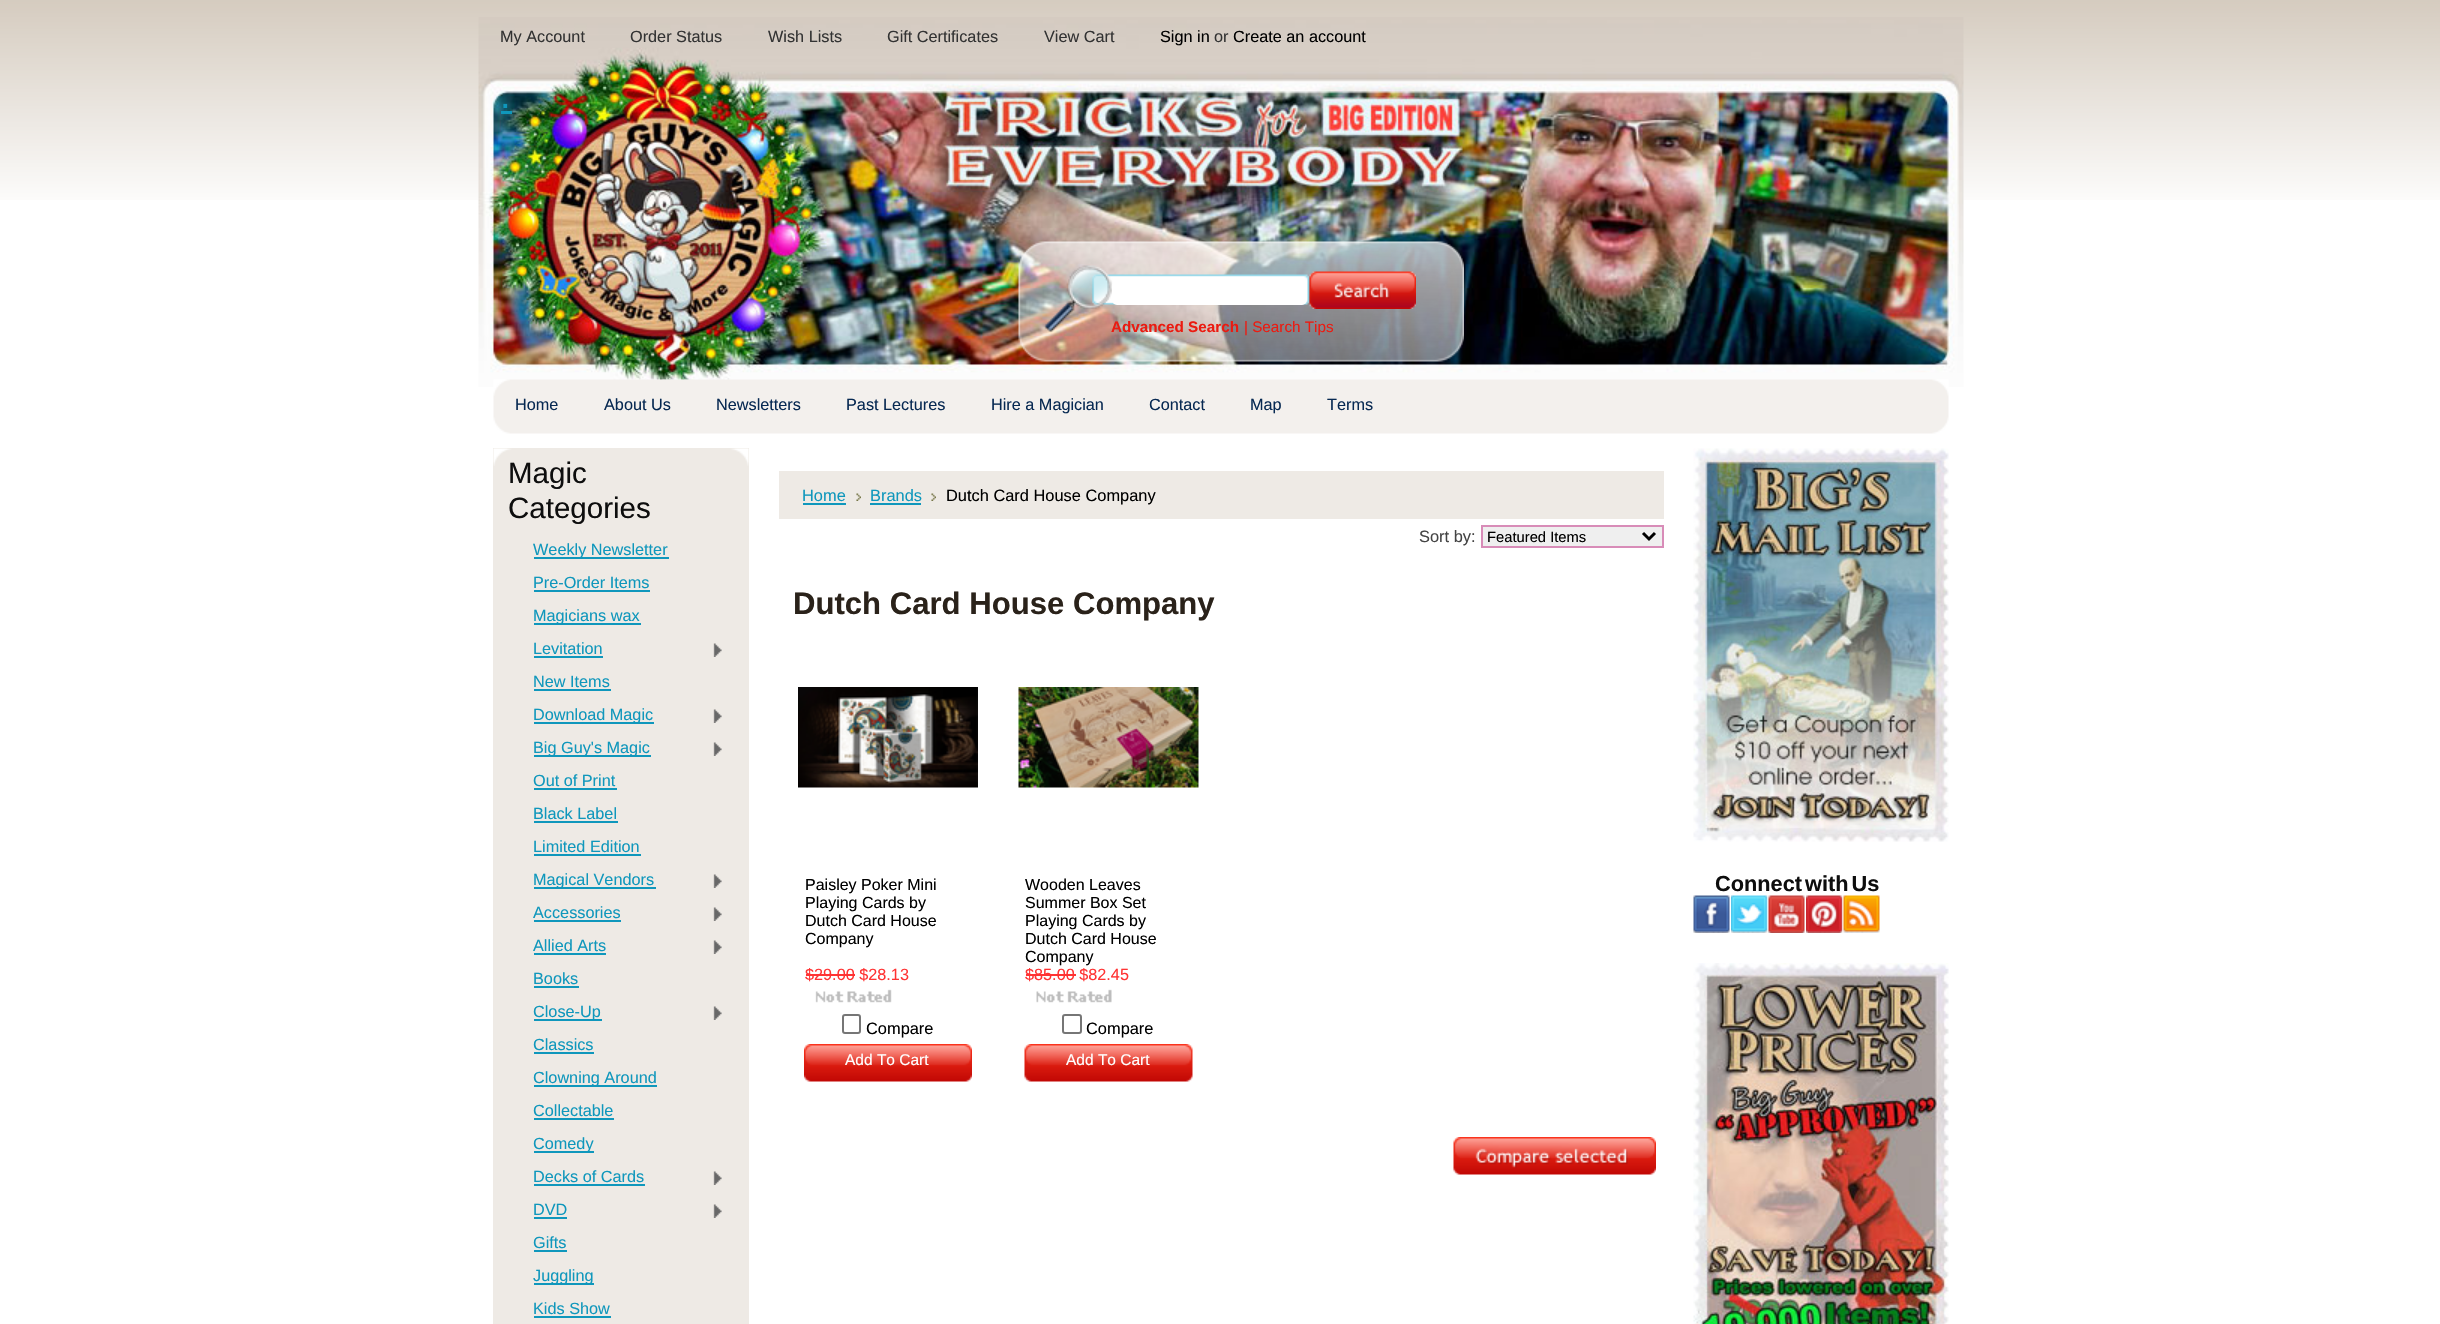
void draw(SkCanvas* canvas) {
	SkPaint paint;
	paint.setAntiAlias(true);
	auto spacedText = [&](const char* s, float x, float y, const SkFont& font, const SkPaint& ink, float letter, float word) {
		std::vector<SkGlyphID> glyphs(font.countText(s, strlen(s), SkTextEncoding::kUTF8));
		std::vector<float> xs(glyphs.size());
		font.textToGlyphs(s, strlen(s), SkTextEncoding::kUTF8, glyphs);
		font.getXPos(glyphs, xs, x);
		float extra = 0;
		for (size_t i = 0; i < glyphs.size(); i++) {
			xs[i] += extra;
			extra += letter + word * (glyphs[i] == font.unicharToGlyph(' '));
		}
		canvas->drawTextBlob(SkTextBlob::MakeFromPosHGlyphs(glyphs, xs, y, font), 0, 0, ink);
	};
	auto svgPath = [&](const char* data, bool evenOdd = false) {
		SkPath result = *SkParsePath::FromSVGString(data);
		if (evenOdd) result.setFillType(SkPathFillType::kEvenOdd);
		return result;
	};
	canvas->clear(0xffffffff);
	canvas->drawImageRect(SkImages::DeferredFromEncodedData(SkData::MakeFromFileName("img1.png")), SkRect::MakeXYWH(0, 0, 2440, 200), SkSamplingOptions());
	canvas->drawImageRect(SkImages::DeferredFromEncodedData(SkData::MakeFromFileName("img2.png")), SkRect::MakeXYWH(478, 17, 1486, 370), SkSamplingOptions());
	SkFont f1(fontMgr->matchFamilyStyle("Liberation Sans", SkFontStyle::Normal()), 16.25);
	f1.setSubpixel(true);
	paint.setColor(0xff333333);
	canvas->drawString("My Account", 500, 42, f1, paint);
	canvas->drawString("Order Status", 630, 42, f1, paint);
	canvas->drawString("Wish Lists", 768, 42, f1, paint);
	canvas->drawString("Gift Certificates", 887, 42, f1, paint);
	canvas->drawString("View Cart", 1044, 42, f1, paint);
	paint.setColor(0xff000000);
	canvas->drawString("Sign in", 1160, 42, f1, paint);
	paint.setColor(0xff333333);
	canvas->drawString("or", 1214, 42, f1, paint);
	paint.setColor(0xff000000);
	canvas->drawString("Create an account", 1233, 42, f1, paint);
	SkFont f2(fontMgr->matchFamilyStyle("Liberation Sans", SkFontStyle::Normal()), 38);
	f2.setSubpixel(true);
	paint.setColor(0xff0f97bc);
	canvas->drawString(".", 500, 108, f2, paint);
	canvas->drawRect(SkRect::MakeXYWH(501, 111, 11, 3), paint);
	canvas->drawImageRect(SkImages::DeferredFromEncodedData(SkData::MakeFromFileName("img3.png")), SkRect::MakeXYWH(1018, 241, 446, 121), SkSamplingOptions());
	paint.setColor(0xffffffff);
	canvas->drawRoundRect(SkRect::MakeXYWH(1112, 281, 195, 24), 5, 5, paint);
	canvas->drawImageRect(SkImages::DeferredFromEncodedData(SkData::MakeFromFileName("img4.png")), SkRect::MakeXYWH(1309, 271, 107, 38), SkSamplingOptions());
	SkFont f3(fontMgr->matchFamilyStyle("Liberation Sans", SkFontStyle::Bold()), 15.25);
	f3.setSubpixel(true);
	paint.setColor(0xffeb1b11);
	canvas->drawString("Advanced Search", 1111, 332, f3, paint);
	SkFont f4(fontMgr->matchFamilyStyle("Liberation Sans", SkFontStyle::Normal()), 15.25);
	f4.setSubpixel(true);
	canvas->drawString("| Search Tips", 1244, 332, f4, paint);
	canvas->drawImageRect(SkImages::DeferredFromEncodedData(SkData::MakeFromFileName("img5.png")), SkRect::MakeXYWH(493, 379, 1456, 55), SkSamplingOptions());
	paint.setColor(0xff072952);
	canvas->drawString("Home", 515, 410, f1, paint);
	canvas->drawString("About Us", 604, 410, f1, paint);
	canvas->drawString("Newsletters", 716, 410, f1, paint);
	canvas->drawString("Past Lectures", 846, 410, f1, paint);
	canvas->drawString("Hire a Magician", 991, 410, f1, paint);
	canvas->drawString("Contact", 1149, 410, f1, paint);
	canvas->drawString("Map", 1250, 410, f1, paint);
	canvas->drawString("Terms", 1327, 410, f1, paint);
	paint.setColor(0xffeeeae5);
	canvas->drawRect(SkRect::MakeXYWH(493, 448, 256, 876), paint);
	canvas->drawImageRect(SkImages::DeferredFromEncodedData(SkData::MakeFromFileName("img6.png")), SkRect::MakeXYWH(493, 448, 256, 18), SkSamplingOptions());
	SkFont f5(fontMgr->matchFamilyStyle("Liberation Sans", SkFontStyle::Normal()), 29.5);
	f5.setSubpixel(true);
	paint.setColor(0xff0e0e0e);
	canvas->drawString("Magic", 508, 483, f5, paint);
	canvas->drawString("Categories", 508, 518, f5, paint);
	paint.setColor(0xff0f97bc);
	canvas->drawRect(SkRect::MakeXYWH(534, 557, 135, 2), paint);
	canvas->drawString("Weekly Newsletter", 533, 555, f1, paint);
	canvas->drawString("Pre-Order Items", 533, 588, f1, paint);
	canvas->drawRect(SkRect::MakeXYWH(534, 590, 116, 2), paint);
	canvas->drawRect(SkRect::MakeXYWH(534, 623, 107, 2), paint);
	canvas->drawString("Magicians wax", 533, 621, f1, paint);
	canvas->drawString("Levitation", 533, 654, f1, paint);
	canvas->drawRect(SkRect::MakeXYWH(534, 656, 69, 2), paint);
	canvas->drawImageRect(SkImages::DeferredFromEncodedData(SkData::MakeFromFileName("img7.png")), SkRect::MakeXYWH(713, 643, 9, 14), SkSamplingOptions());
	canvas->drawString("New Items", 533, 687, f1, paint);
	canvas->drawRect(SkRect::MakeXYWH(534, 689, 77, 2), paint);
	canvas->drawRect(SkRect::MakeXYWH(534, 722, 120, 2), paint);
	canvas->drawString("Download Magic", 533, 720, f1, paint);
	canvas->drawImageRect(SkImages::DeferredFromEncodedData(SkData::MakeFromFileName("img7.png")), SkRect::MakeXYWH(713, 709, 9, 14), SkSamplingOptions());
	canvas->drawRect(SkRect::MakeXYWH(534, 755, 117, 2), paint);
	canvas->drawString("Big Guy's Magic", 533, 753, f1, paint);
	canvas->drawImageRect(SkImages::DeferredFromEncodedData(SkData::MakeFromFileName("img7.png")), SkRect::MakeXYWH(713, 742, 9, 14), SkSamplingOptions());
	canvas->drawString("Out of Print", 533, 786, f1, paint);
	canvas->drawRect(SkRect::MakeXYWH(534, 788, 83, 2), paint);
	canvas->drawString("Black Label", 533, 819, f1, paint);
	canvas->drawRect(SkRect::MakeXYWH(534, 821, 84, 2), paint);
	canvas->drawString("Limited Edition", 533, 852, f1, paint);
	canvas->drawRect(SkRect::MakeXYWH(534, 854, 107, 2), paint);
	canvas->drawRect(SkRect::MakeXYWH(534, 887, 122, 2), paint);
	canvas->drawString("Magical Vendors", 533, 885, f1, paint);
	canvas->drawImageRect(SkImages::DeferredFromEncodedData(SkData::MakeFromFileName("img7.png")), SkRect::MakeXYWH(713, 874, 9, 14), SkSamplingOptions());
	canvas->drawString("Accessories", 533, 918, f1, paint);
	canvas->drawRect(SkRect::MakeXYWH(534, 920, 87, 2), paint);
	canvas->drawImageRect(SkImages::DeferredFromEncodedData(SkData::MakeFromFileName("img7.png")), SkRect::MakeXYWH(713, 907, 9, 14), SkSamplingOptions());
	canvas->drawString("Allied Arts", 533, 951, f1, paint);
	canvas->drawRect(SkRect::MakeXYWH(534, 953, 72, 2), paint);
	canvas->drawImageRect(SkImages::DeferredFromEncodedData(SkData::MakeFromFileName("img7.png")), SkRect::MakeXYWH(713, 940, 9, 14), SkSamplingOptions());
	canvas->drawString("Books", 533, 984, f1, paint);
	canvas->drawRect(SkRect::MakeXYWH(534, 986, 45, 2), paint);
	canvas->drawRect(SkRect::MakeXYWH(534, 1019, 68, 2), paint);
	canvas->drawString("Close-Up", 533, 1017, f1, paint);
	canvas->drawImageRect(SkImages::DeferredFromEncodedData(SkData::MakeFromFileName("img7.png")), SkRect::MakeXYWH(713, 1006, 9, 14), SkSamplingOptions());
	canvas->drawString("Classics", 533, 1050, f1, paint);
	canvas->drawRect(SkRect::MakeXYWH(534, 1052, 60, 2), paint);
	canvas->drawRect(SkRect::MakeXYWH(534, 1085, 123, 2), paint);
	canvas->drawString("Clowning Around", 533, 1083, f1, paint);
	canvas->drawString("Collectable", 533, 1116, f1, paint);
	canvas->drawRect(SkRect::MakeXYWH(534, 1118, 80, 2), paint);
	canvas->drawRect(SkRect::MakeXYWH(534, 1151, 60, 2), paint);
	canvas->drawString("Comedy", 533, 1149, f1, paint);
	canvas->drawString("Decks of Cards", 533, 1182, f1, paint);
	canvas->drawRect(SkRect::MakeXYWH(534, 1184, 111, 2), paint);
	canvas->drawImageRect(SkImages::DeferredFromEncodedData(SkData::MakeFromFileName("img7.png")), SkRect::MakeXYWH(713, 1171, 9, 14), SkSamplingOptions());
	canvas->drawString("DVD", 533, 1215, f1, paint);
	canvas->drawRect(SkRect::MakeXYWH(534, 1217, 33, 2), paint);
	canvas->drawImageRect(SkImages::DeferredFromEncodedData(SkData::MakeFromFileName("img7.png")), SkRect::MakeXYWH(713, 1204, 9, 14), SkSamplingOptions());
	canvas->drawString("Gifts", 533, 1248, f1, paint);
	canvas->drawRect(SkRect::MakeXYWH(534, 1250, 33, 2), paint);
	canvas->drawRect(SkRect::MakeXYWH(534, 1283, 60, 2), paint);
	canvas->drawString("Juggling", 533, 1281, f1, paint);
	canvas->drawString("Kids Show", 533, 1314, f1, paint);
	canvas->drawRect(SkRect::MakeXYWH(534, 1316, 77, 2), paint);
	paint.setColor(0xffeeeae5);
	canvas->drawRect(SkRect::MakeXYWH(779, 471, 885, 48), paint);
	SkFont f6(fontMgr->matchFamilyStyle("Liberation Sans", SkFontStyle::Normal()), 16.4);
	f6.setSubpixel(true);
	paint.setColor(0xff0f97bc);
	canvas->drawString("Home", 802, 501, f6, paint);
	canvas->drawRect(SkRect::MakeXYWH(803, 503, 43, 2), paint);
	canvas->drawImageRect(SkImages::DeferredFromEncodedData(SkData::MakeFromFileName("img8.png")), SkRect::MakeXYWH(856, 493, 5, 8), SkSamplingOptions());
	canvas->drawString("Brands", 870, 501, f6, paint);
	canvas->drawRect(SkRect::MakeXYWH(870, 503, 51, 2), paint);
	canvas->drawImageRect(SkImages::DeferredFromEncodedData(SkData::MakeFromFileName("img8.png")), SkRect::MakeXYWH(931, 493, 5, 8), SkSamplingOptions());
	paint.setColor(0xff000000);
	canvas->drawString("Dutch Card House Company", 946, 501, f6, paint);
	paint.setColor(0xff444444);
	canvas->drawString("Sort by:", 1419, 542, f6, paint);
	paint.setColor(0xffefefef);
	canvas->drawRect(SkRect::MakeXYWH(1482, 526, 181, 21), paint);
	paint.setStroke(true);
	paint.setStrokeWidth(2);
	paint.setColor(0xffd88cb8);
	canvas->drawRect(SkRect::MakeXYWH(1482, 526, 181, 21), paint);
	paint.setStrokeWidth(3);
	paint.setColor(0xff000000);
	canvas->drawPath(svgPath("M1643 533L1649 539L1655 533"), paint);
	SkFont f7(fontMgr->matchFamilyStyle("Liberation Sans", SkFontStyle::Normal()), 14.75);
	f7.setSubpixel(true);
	paint.setStroke(false);
	canvas->drawString("Featured Items", 1487, 542, f7, paint);
	SkFont f8(fontMgr->matchFamilyStyle("Liberation Sans", SkFontStyle::Bold()), 31.1);
	f8.setSubpixel(true);
	paint.setColor(0xff2a221a);
	canvas->drawString("Dutch Card House Company", 793, 614, f8, paint);
	canvas->drawImageRect(SkImages::DeferredFromEncodedData(SkData::MakeFromFileName("img9.png")), SkRect::MakeXYWH(798, 687, 180, 101), SkSamplingOptions());
	SkFont f9(fontMgr->matchFamilyStyle("Liberation Sans", SkFontStyle::Normal()), 16);
	f9.setSubpixel(true);
	paint.setColor(0xff000000);
	canvas->drawString("Paisley Poker Mini", 805, 890, f9, paint);
	canvas->drawString("Playing Cards by", 805, 908, f9, paint);
	canvas->drawString("Dutch Card House", 805, 926, f9, paint);
	canvas->drawString("Company", 805, 944, f9, paint);
	paint.setColor(0xffff3333);
	canvas->drawString("$29.00 $28.13", 805, 980, f1, paint);
	canvas->drawRect(SkRect::MakeXYWH(806, 974, 49, 2), paint);
	canvas->drawImageRect(SkImages::DeferredFromEncodedData(SkData::MakeFromFileName("img10.png")), SkRect::MakeXYWH(815, 989, 77, 14), SkSamplingOptions());
	paint.setStroke(true);
	paint.setStrokeWidth(2);
	paint.setColor(0xff767676);
	canvas->drawRoundRect(SkRect::MakeXYWH(843, 1015, 17, 18), 2, 2, paint);
	paint.setStroke(false);
	paint.setColor(0xff000000);
	canvas->drawString("Compare", 866, 1034, f6, paint);
	canvas->drawImageRect(SkImages::DeferredFromEncodedData(SkData::MakeFromFileName("img11.png")), SkRect::MakeXYWH(804, 1044, 168, 38), SkSamplingOptions());
	SkFont f10(fontMgr->matchFamilyStyle("Liberation Sans", SkFontStyle::Normal()), 15.5);
	f10.setSubpixel(true);
	paint.setColor(0xffffffff);
	canvas->drawString("Add To Cart", 845, 1065, f10, paint);
	canvas->drawImageRect(SkImages::DeferredFromEncodedData(SkData::MakeFromFileName("img12.png")), SkRect::MakeXYWH(1018, 687, 181, 101), SkSamplingOptions());
	paint.setColor(0xff000000);
	canvas->drawString("Wooden Leaves", 1025, 890, f9, paint);
	canvas->drawString("Summer Box Set", 1025, 908, f9, paint);
	canvas->drawString("Playing Cards by", 1025, 926, f9, paint);
	canvas->drawString("Dutch Card House", 1025, 944, f9, paint);
	canvas->drawString("Company", 1025, 962, f9, paint);
	paint.setColor(0xffff3333);
	canvas->drawString("$85.00 $82.45", 1025, 980, f1, paint);
	canvas->drawRect(SkRect::MakeXYWH(1026, 974, 50, 2), paint);
	canvas->drawImageRect(SkImages::DeferredFromEncodedData(SkData::MakeFromFileName("img13.png")), SkRect::MakeXYWH(1036, 989, 76, 14), SkSamplingOptions());
	paint.setStroke(true);
	paint.setColor(0xff767676);
	canvas->drawRoundRect(SkRect::MakeXYWH(1063, 1015, 18, 18), 2, 2, paint);
	paint.setStroke(false);
	paint.setColor(0xff000000);
	canvas->drawString("Compare", 1086, 1034, f6, paint);
	canvas->drawImageRect(SkImages::DeferredFromEncodedData(SkData::MakeFromFileName("img14.png")), SkRect::MakeXYWH(1024, 1044, 169, 38), SkSamplingOptions());
	paint.setColor(0xffffffff);
	canvas->drawString("Add To Cart", 1066, 1065, f10, paint);
	canvas->drawImageRect(SkImages::DeferredFromEncodedData(SkData::MakeFromFileName("img15.png")), SkRect::MakeXYWH(1453, 1137, 203, 38), SkSamplingOptions());
	canvas->drawImageRect(SkImages::DeferredFromEncodedData(SkData::MakeFromFileName("img16.png")), SkRect::MakeXYWH(1693, 448, 256, 394), SkSamplingOptions());
	SkFont f11(fontMgr->matchFamilyStyle("Liberation Sans", SkFontStyle::Bold()), 21.75);
	f11.setSubpixel(true);
	paint.setColor(0xff0e0e0e);
	spacedText("Connect with Us", 1715, 891, f11, paint, 0, -3);
	canvas->drawImageRect(SkImages::DeferredFromEncodedData(SkData::MakeFromFileName("img17.png")), SkRect::MakeXYWH(1693, 895, 37, 38), SkSamplingOptions());
	canvas->drawImageRect(SkImages::DeferredFromEncodedData(SkData::MakeFromFileName("img18.png")), SkRect::MakeXYWH(1731, 895, 37, 38), SkSamplingOptions());
	canvas->drawImageRect(SkImages::DeferredFromEncodedData(SkData::MakeFromFileName("img19.png")), SkRect::MakeXYWH(1768, 895, 37, 38), SkSamplingOptions());
	canvas->drawImageRect(SkImages::DeferredFromEncodedData(SkData::MakeFromFileName("img20.png")), SkRect::MakeXYWH(1806, 895, 37, 38), SkSamplingOptions());
	canvas->drawImageRect(SkImages::DeferredFromEncodedData(SkData::MakeFromFileName("img21.png")), SkRect::MakeXYWH(1843, 895, 37, 38), SkSamplingOptions());
	canvas->drawImageRect(SkImages::DeferredFromEncodedData(SkData::MakeFromFileName("img22.png")), SkRect::MakeXYWH(1693, 963, 256, 361), SkSamplingOptions());
}
